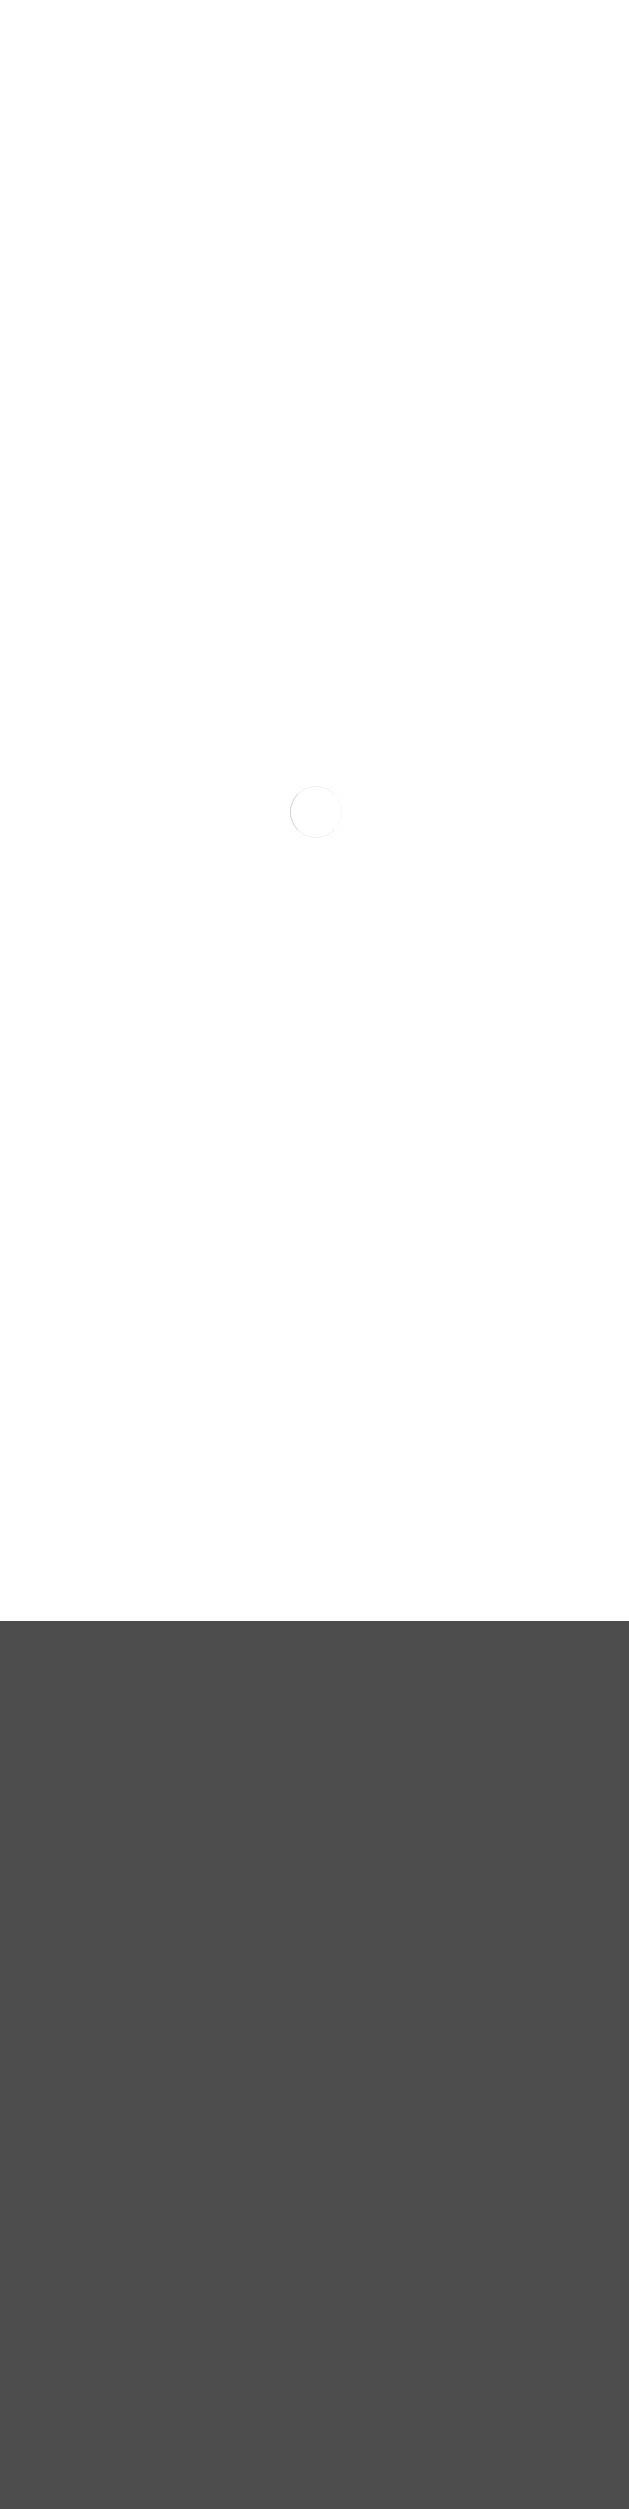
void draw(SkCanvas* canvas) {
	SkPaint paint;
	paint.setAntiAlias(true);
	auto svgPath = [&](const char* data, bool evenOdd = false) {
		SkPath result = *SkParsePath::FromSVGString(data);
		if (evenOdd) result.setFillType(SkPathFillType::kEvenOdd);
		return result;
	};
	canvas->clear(0xff4d4d4d);
	paint.setColor(0xffffffff);
	canvas->drawRect(SkRect::MakeXYWH(0, 0, 629, 1621), paint);
	paint.setStroke(true);
	paint.setStrokeWidth(1);
	paint.setColor(0xfff1f1f1);
	canvas->drawPath(svgPath("M298 794C308 784 324 784 334 794"), paint);
	paint.setColor(0xfffafafa);
	canvas->drawPath(svgPath("M334 794C344 804 344 820 334 830"), paint);
	paint.setColor(0xfff1f1f1);
	canvas->drawPath(svgPath("M334 830C324 840 308 840 298 830"), paint);
	paint.setColor(0xffcfcfcf);
	canvas->drawPath(svgPath("M298 830C288 820 288 804 298 794"), paint);
}
